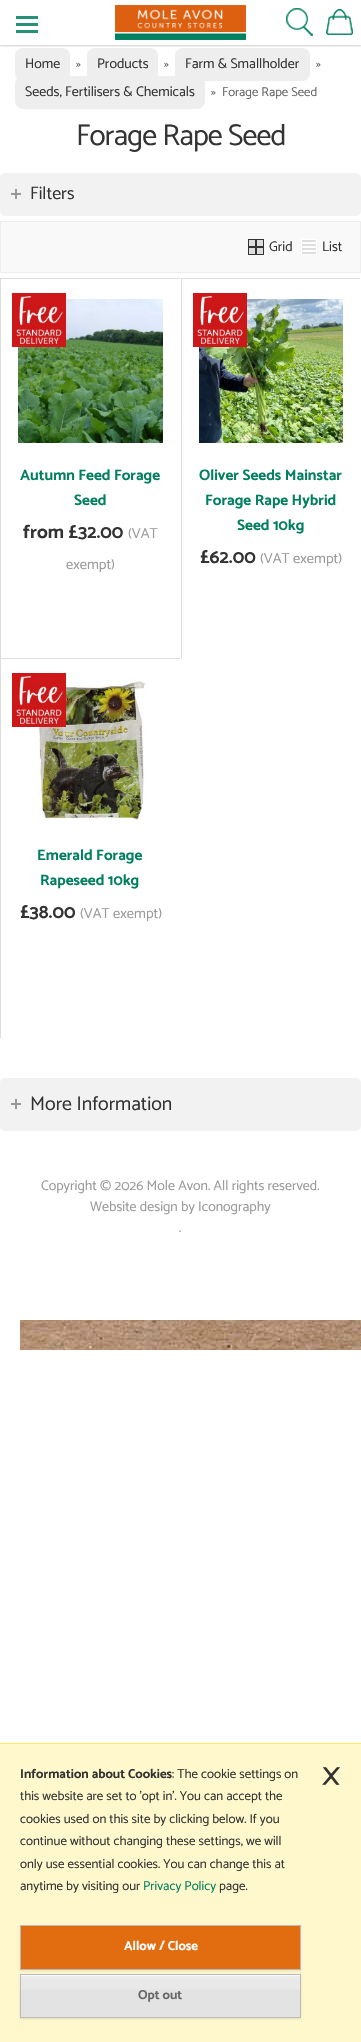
void draw(SkCanvas* canvas) {
	SkPaint paint;
	paint.setAntiAlias(true);
	auto spacedText = [&](const char* s, float x, float y, const SkFont& font, const SkPaint& ink, float letter, float word) {
		std::vector<SkGlyphID> glyphs(font.countText(s, strlen(s), SkTextEncoding::kUTF8));
		std::vector<float> xs(glyphs.size());
		font.textToGlyphs(s, strlen(s), SkTextEncoding::kUTF8, glyphs);
		font.getXPos(glyphs, xs, x);
		float extra = 0;
		for (size_t i = 0; i < glyphs.size(); i++) {
			xs[i] += extra;
			extra += letter + word * (glyphs[i] == font.unicharToGlyph(' '));
		}
		canvas->drawTextBlob(SkTextBlob::MakeFromPosHGlyphs(glyphs, xs, y, font), 0, 0, ink);
	};
	canvas->clear(0xffffffff);
	canvas->drawImageRect(SkImages::DeferredFromEncodedData(SkData::MakeFromFileName("img1.png")), SkRect::MakeXYWH(20, 1320, 341, 30), SkSamplingOptions());
	paint.setColor(0xffeeeeee);
	canvas->drawRoundRect(SkRect::MakeXYWH(15, 48, 55, 33), 8, 8, paint);
	canvas->drawRoundRect(SkRect::MakeXYWH(87, 48, 71, 33), 8, 8, paint);
	canvas->drawRoundRect(SkRect::MakeXYWH(175, 48, 135, 33), 8, 8, paint);
	canvas->save();
	canvas->clipRect(SkRect::MakeXYWH(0, 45, 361, 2));
	paint.setColor(0x33000000);
	paint.setMaskFilter(SkMaskFilter::MakeBlur(kNormal_SkBlurStyle, 1));
	canvas->drawRect(SkRect::MakeXYWH(0, 1, 361, 45), paint);
	paint.setMaskFilter(nullptr);
	canvas->restore();
	canvas->drawImageRect(SkImages::DeferredFromEncodedData(SkData::MakeFromFileName("img2.png")), SkRect::MakeXYWH(16, 16, 22, 17), SkSamplingOptions());
	canvas->drawImageRect(SkImages::DeferredFromEncodedData(SkData::MakeFromFileName("img3.png")), SkRect::MakeXYWH(115, 5, 131, 35), SkSamplingOptions());
	canvas->drawImageRect(SkImages::DeferredFromEncodedData(SkData::MakeFromFileName("img4.png")), SkRect::MakeXYWH(286, 8, 27, 28), SkSamplingOptions());
	canvas->drawImageRect(SkImages::DeferredFromEncodedData(SkData::MakeFromFileName("img5.png")), SkRect::MakeXYWH(326, 9, 27, 26), SkSamplingOptions());
	SkFont f1(fontMgr->matchFamilyStyle("Catamaran", SkFontStyle::Normal()), 14);
	f1.setSubpixel(true);
	paint.setColor(0xff333333);
	canvas->drawString("Home", 25, 68, f1, paint);
	SkFont f2(fontMgr->matchFamilyStyle("Catamaran", SkFontStyle::Normal()), 12.75);
	f2.setSubpixel(true);
	paint.setColor(0xff666666);
	canvas->drawString("»", 76, 68, f2, paint);
	paint.setColor(0xff333333);
	canvas->drawString("Products", 97, 68, f1, paint);
	paint.setColor(0xff666666);
	canvas->drawString("»", 164, 68, f2, paint);
	paint.setColor(0xff333333);
	canvas->drawString("Farm & Smallholder", 185, 68, f1, paint);
	paint.setColor(0xff666666);
	canvas->drawString("»", 316, 68, f2, paint);
	paint.setColor(0xffeeeeee);
	canvas->drawRoundRect(SkRect::MakeXYWH(15, 76, 190, 33), 8, 8, paint);
	paint.setColor(0xff333333);
	canvas->drawString("Seeds, Fertilisers & Chemicals", 25, 96, f1, paint);
	paint.setColor(0xff666666);
	canvas->drawString("»", 211, 96, f2, paint);
	canvas->drawString("Forage Rape Seed", 222, 96, f2, paint);
	SkFont f3(fontMgr->matchFamilyStyle("Catamaran", SkFontStyle::Normal()), 30);
	f3.setSubpixel(true);
	paint.setColor(0xff333333);
	spacedText("Forage Rape Seed", 76, 145, f3, paint, -0.9, 0);
	paint.setColor(0xfff2f2f2);
	canvas->drawRoundRect(SkRect::MakeXYWH(0, 173, 361, 43), 5, 5, paint);
	canvas->drawImageRect(SkImages::DeferredFromEncodedData(SkData::MakeFromFileName("img6.png")), SkRect::MakeXYWH(11, 189, 10, 10), SkSamplingOptions());
	SkFont f4(fontMgr->matchFamilyStyle("Catamaran", SkFontStyle::Normal()), 18);
	f4.setSubpixel(true);
	paint.setColor(0xff333333);
	canvas->drawString("Filters", 30, 199, f4, paint);
	paint.setColor(0xfff9f9f9);
	canvas->drawRect(SkRect::MakeXYWH(0.5, 221.5, 360, 51), paint);
	paint.setStroke(true);
	paint.setStrokeWidth(1);
	paint.setColor(0xffeeeeee);
	canvas->drawRect(SkRect::MakeXYWH(0.5, 221.5, 360, 51), paint);
	paint.setStroke(false);
	paint.setColor(0xff333333);
	canvas->drawRect(SkRect::MakeXYWH(248, 239, 16, 16), paint);
	canvas->drawImageRect(SkImages::DeferredFromEncodedData(SkData::MakeFromFileName("img7.png")), SkRect::MakeXYWH(249, 240, 14, 14), SkSamplingOptions());
	canvas->drawString("Grid", 269, 251, f1, paint);
	paint.setColor(0xffffffff);
	canvas->drawRect(SkRect::MakeXYWH(301, 239, 16, 16), paint);
	canvas->drawImageRect(SkImages::DeferredFromEncodedData(SkData::MakeFromFileName("img8.png")), SkRect::MakeXYWH(302, 240, 14, 14), SkSamplingOptions());
	paint.setColor(0xff333333);
	canvas->drawString("List", 322, 251, f1, paint);
	paint.setColor(0xffdddddd);
	canvas->drawRect(SkRect::MakeXYWH(0, 278, 361, 1), paint);
	paint.setColor(0xffffffff);
	canvas->drawRect(SkRect::MakeXYWH(180, 278, 1, 1), paint);
	paint.setColor(0xffdddddd);
	canvas->drawRect(SkRect::MakeXYWH(0, 278, 1, 380), paint);
	canvas->drawImageRect(SkImages::DeferredFromEncodedData(SkData::MakeFromFileName("img10.png")), SkRect::MakeXYWH(18, 299, 145, 144), SkSamplingOptions());
	canvas->drawImageRect(SkImages::DeferredFromEncodedData(SkData::MakeFromFileName("img9.png")), SkRect::MakeXYWH(12, 293, 54, 54), SkSamplingOptions());
	SkFont f5(fontMgr->matchFamilyStyle("Catamaran", SkFontStyle::Bold()), 15.25);
	f5.setSubpixel(true);
	paint.setColor(0xff027f61);
	canvas->drawString("Autumn Feed Forage", 20, 480, f5, paint);
	canvas->drawString("Seed", 74, 505, f5, paint);
	SkFont f6(fontMgr->matchFamilyStyle("Catamaran", SkFontStyle::Bold()), 19);
	f6.setSubpixel(true);
	paint.setColor(0xff333333);
	canvas->drawString("from £32.00", 23, 538, f6, paint);
	SkFont f7(fontMgr->matchFamilyStyle("Catamaran", SkFontStyle::Normal()), 14.5);
	f7.setSubpixel(true);
	paint.setColor(0xff999999);
	canvas->drawString("(VAT", 128, 538, f7, paint);
	canvas->drawString("exempt)", 66, 569, f7, paint);
	paint.setColor(0xffffffff);
	canvas->drawRect(SkRect::MakeXYWH(360, 278, 1, 1), paint);
	paint.setColor(0xffdddddd);
	canvas->drawRect(SkRect::MakeXYWH(181, 278, 1, 380), paint);
	canvas->drawImageRect(SkImages::DeferredFromEncodedData(SkData::MakeFromFileName("img12.png")), SkRect::MakeXYWH(199, 299, 144, 144), SkSamplingOptions());
	canvas->drawImageRect(SkImages::DeferredFromEncodedData(SkData::MakeFromFileName("img11.png")), SkRect::MakeXYWH(193, 293, 54, 54), SkSamplingOptions());
	paint.setColor(0xff027f61);
	canvas->drawString("Oliver Seeds Mainstar", 199, 480, f5, paint);
	canvas->drawString("Forage Rape Hybrid", 205, 505, f5, paint);
	canvas->drawString("Seed 10kg", 237, 530, f5, paint);
	paint.setColor(0xff333333);
	canvas->drawString("£62.00", 200, 563, f6, paint);
	paint.setColor(0xff999999);
	canvas->drawString("(VAT exempt)", 260, 563, f7, paint);
	paint.setColor(0xffdddddd);
	canvas->drawRect(SkRect::MakeXYWH(0, 658, 181, 1), paint);
	paint.setColor(0xffffffff);
	canvas->drawRect(SkRect::MakeXYWH(180, 658, 1, 1), paint);
	paint.setColor(0xffdddddd);
	canvas->drawRect(SkRect::MakeXYWH(0, 658, 1, 380), paint);
	canvas->drawImageRect(SkImages::DeferredFromEncodedData(SkData::MakeFromFileName("img13.png")), SkRect::MakeXYWH(33, 679, 115, 141), SkSamplingOptions());
	canvas->drawImageRect(SkImages::DeferredFromEncodedData(SkData::MakeFromFileName("img9.png")), SkRect::MakeXYWH(12, 673, 54, 54), SkSamplingOptions());
	paint.setColor(0xff027f61);
	canvas->drawString("Emerald Forage", 37, 860, f5, paint);
	canvas->drawString("Rapeseed 10kg", 40, 885, f5, paint);
	paint.setColor(0xff333333);
	canvas->drawString("£38.00", 20, 918, f6, paint);
	paint.setColor(0xff999999);
	canvas->drawString("(VAT exempt)", 80, 918, f7, paint);
	paint.setColor(0xfff2f2f2);
	canvas->drawRoundRect(SkRect::MakeXYWH(0, 1078, 361, 53), 5, 5, paint);
	canvas->drawImageRect(SkImages::DeferredFromEncodedData(SkData::MakeFromFileName("img6.png")), SkRect::MakeXYWH(11, 1099, 10, 10), SkSamplingOptions());
	SkFont f8(fontMgr->matchFamilyStyle("Catamaran", SkFontStyle::Normal()), 19.75);
	f8.setSubpixel(true);
	paint.setColor(0xff333333);
	canvas->drawString("More Information", 30, 1110, f8, paint);
	paint.setColor(0xff999999);
	canvas->drawString("Copyright © 2026 Mole Avon. All rights reserved.", 41, 1190, f1, paint);
	canvas->drawString("Website design by Iconography", 90, 1211, f1, paint);
	canvas->drawString(".", 179, 1232, f1, paint);
	paint.setColor(0xfffff8cc);
	canvas->drawRect(SkRect::MakeXYWH(0, 1744, 361, 298), paint);
	paint.setColor(0xffffe95c);
	canvas->drawRect(SkRect::MakeXYWH(0, 1743, 361, 1), paint);
	SkFont f9(fontMgr->matchFamilyStyle("Catamaran", SkFontStyle::Bold()), 13);
	f9.setSubpixel(true);
	paint.setColor(0xff333333);
	canvas->drawString("Information about Cookies", 20, 1778, f9, paint);
	SkFont f10(fontMgr->matchFamilyStyle("Catamaran", SkFontStyle::Normal()), 13);
	f10.setSubpixel(true);
	canvas->drawString(": The cookie settings on", 172, 1778, f10, paint);
	SkFont f11(fontMgr->matchFamilyStyle("Catamaran", SkFontStyle::Normal()), 40);
	f11.setSubpixel(true);
	canvas->drawString("×", 321, 1786, f11, paint);
	canvas->drawString("this website are set to 'opt in'. You can accept the", 20, 1800, f10, paint);
	canvas->drawString("cookies used on this site by clicking below. If you", 20, 1823, f10, paint);
	canvas->drawString("continue without changing these settings, we will", 20, 1845, f10, paint);
	canvas->drawString("only use essential cookies. You can change this at", 20, 1868, f10, paint);
	canvas->drawString("anytime by visiting our", 20, 1890, f10, paint);
	paint.setColor(0xff027f61);
	canvas->drawString("Privacy Policy", 143, 1890, f10, paint);
	paint.setColor(0xff333333);
	canvas->drawString("page.", 219, 1890, f10, paint);
	paint.setColor(0x1a000000);
	paint.setMaskFilter(SkMaskFilter::MakeBlur(kNormal_SkBlurStyle, 1));
	canvas->drawRect(SkRect::MakeXYWH(20, 1926, 281, 45), paint);
	paint.setMaskFilter(nullptr);
	paint.setColor(0xffe26d10);
	canvas->drawRect(SkRect::MakeXYWH(20.5, 1925.5, 280, 44), paint);
	paint.setStroke(true);
	paint.setColor(0xffbbbbbb);
	canvas->drawRect(SkRect::MakeXYWH(20.5, 1925.5, 280, 44), paint);
	paint.setStroke(false);
	paint.setColor(0xffffffff);
	canvas->drawString("Allow / Close", 124, 1950, f9, paint);
	paint.setColor(0x1a000000);
	paint.setMaskFilter(SkMaskFilter::MakeBlur(kNormal_SkBlurStyle, 1));
	canvas->drawRect(SkRect::MakeXYWH(20, 1975, 281, 44), paint);
	paint.setMaskFilter(nullptr);
	paint.setColor(0xffe3e3e3);
	canvas->drawRect(SkRect::MakeXYWH(21, 1990, 279, 27), paint);
	canvas->drawImageRect(SkImages::DeferredFromEncodedData(SkData::MakeFromFileName("img14.png")), SkRect::MakeXYWH(21, 1975, 279, 15), SkSamplingOptions());
	paint.setStroke(true);
	paint.setColor(0xffbbbbbb);
	canvas->drawRect(SkRect::MakeXYWH(20.5, 1974.5, 280, 43), paint);
	paint.setStroke(false);
	paint.setColor(0xff666666);
	canvas->drawString("Opt out", 138, 1999, f9, paint);
}
